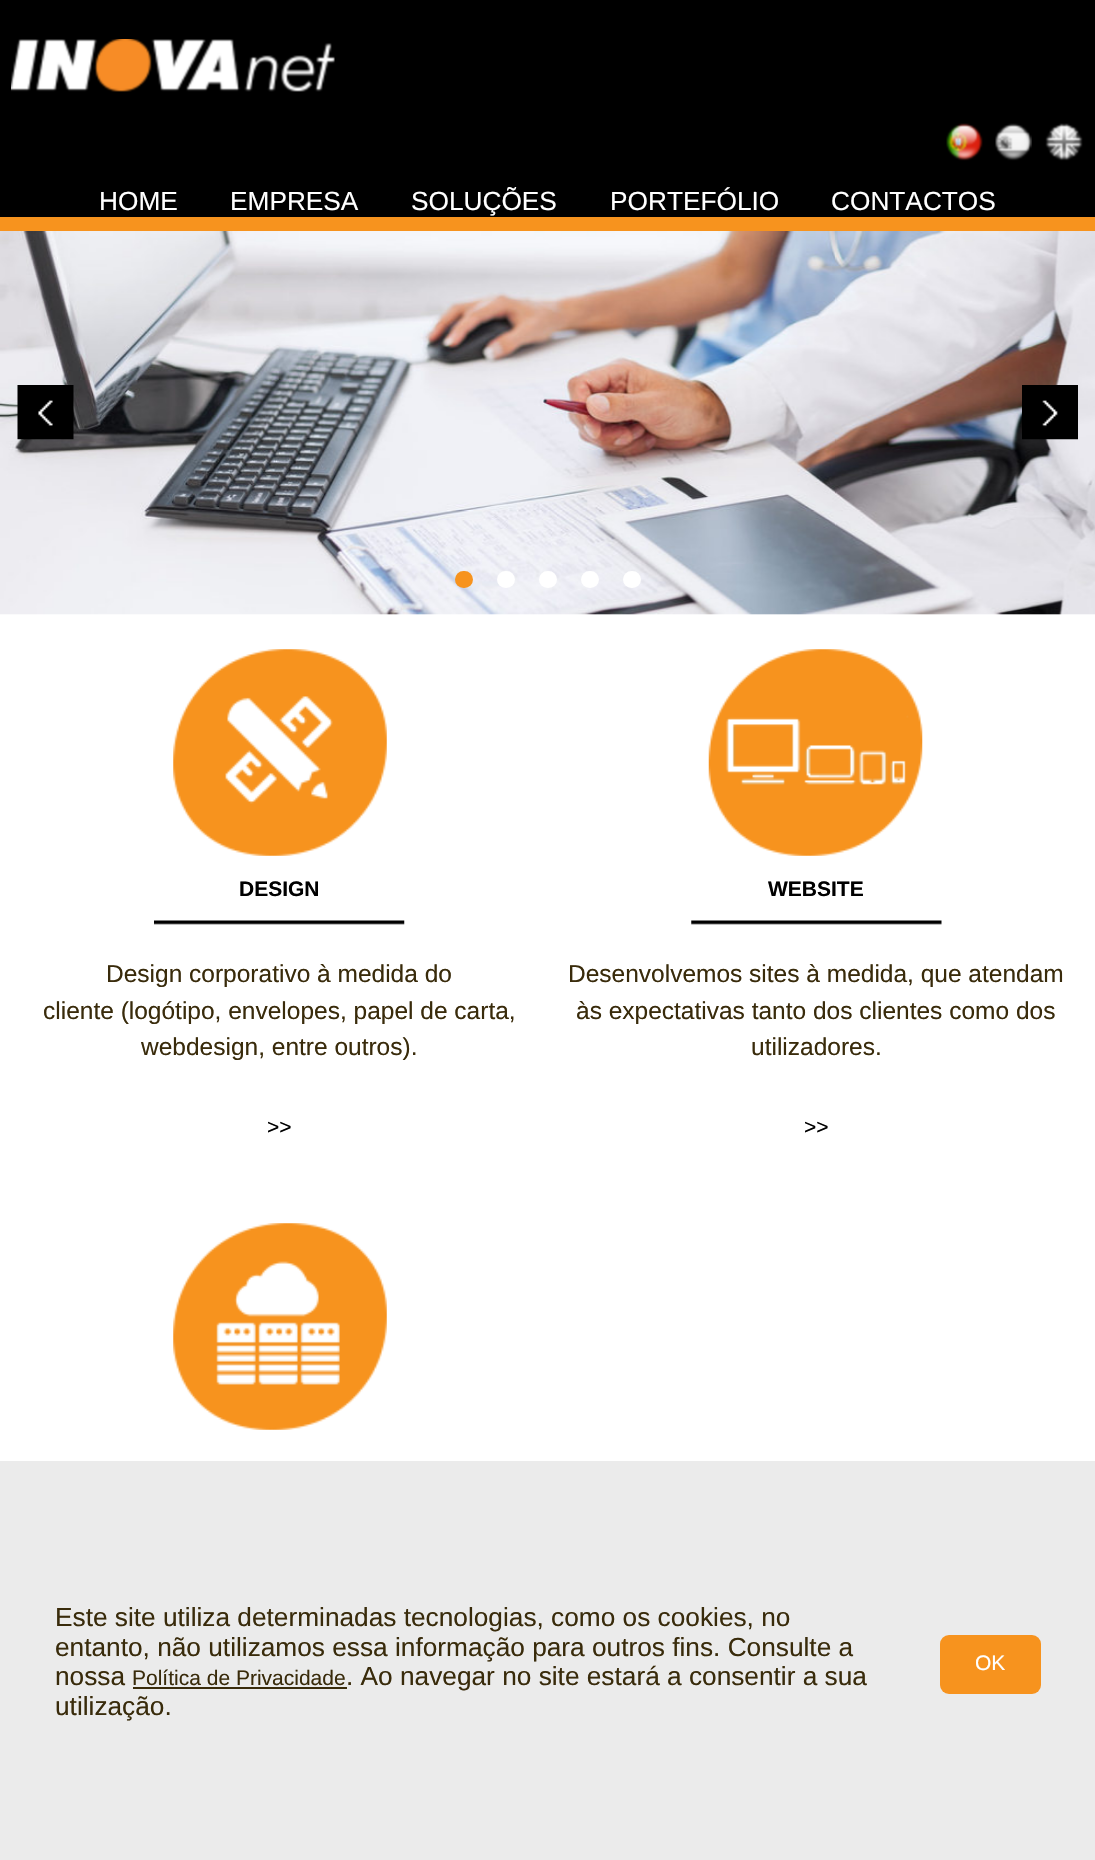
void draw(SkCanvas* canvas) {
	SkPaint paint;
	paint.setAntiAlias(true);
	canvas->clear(0xffffffff);
	paint.setColor(0xff000000);
	canvas->drawRect(SkRect::MakeXYWH(0, 0, 1095, 217), paint);
	canvas->drawImageRect(SkImages::DeferredFromEncodedData(SkData::MakeFromFileName("img1.png")), SkRect::MakeXYWH(11, 39, 324, 53), SkSamplingOptions());
	canvas->drawImageRect(SkImages::DeferredFromEncodedData(SkData::MakeFromFileName("img2.png")), SkRect::MakeXYWH(946, 123, 37, 38), SkSamplingOptions());
	canvas->drawImageRect(SkImages::DeferredFromEncodedData(SkData::MakeFromFileName("img3.png")), SkRect::MakeXYWH(995, 123, 37, 38), SkSamplingOptions());
	canvas->drawImageRect(SkImages::DeferredFromEncodedData(SkData::MakeFromFileName("img4.png")), SkRect::MakeXYWH(1045, 123, 38, 38), SkSamplingOptions());
	SkFont f1(fontMgr->matchFamilyStyle("Liberation Sans", SkFontStyle::Normal()), 26.25);
	f1.setSubpixel(true);
	paint.setColor(0xffffffff);
	canvas->drawString("HOME", 99, 210, f1, paint);
	canvas->drawString("EMPRESA", 230, 210, f1, paint);
	canvas->drawString("SOLUÇÕES", 411, 210, f1, paint);
	canvas->drawString("PORTEFÓLIO", 610, 210, f1, paint);
	canvas->drawString("CONTACTOS", 831, 210, f1, paint);
	paint.setColor(0xfff7931e);
	canvas->drawRect(SkRect::MakeXYWH(0, 217, 1095, 14), paint);
	canvas->drawImageRect(SkImages::DeferredFromEncodedData(SkData::MakeFromFileName("img5.png")), SkRect::MakeXYWH(0, 231, 1095, 384), SkSamplingOptions());
	canvas->drawImageRect(SkImages::DeferredFromEncodedData(SkData::MakeFromFileName("img6.png")), SkRect::MakeXYWH(17, 385, 57, 55), SkSamplingOptions());
	canvas->drawImageRect(SkImages::DeferredFromEncodedData(SkData::MakeFromFileName("img7.png")), SkRect::MakeXYWH(1022, 385, 56, 55), SkSamplingOptions());
	canvas->drawRoundRect(SkRect::MakeXYWH(455, 571, 18, 17), 8.5, 8.5, paint);
	paint.setColor(0xffffffff);
	canvas->drawRoundRect(SkRect::MakeXYWH(497, 571, 18, 17), 8.5, 8.5, paint);
	canvas->drawRoundRect(SkRect::MakeXYWH(539, 571, 18, 17), 8.5, 8.5, paint);
	canvas->drawRoundRect(SkRect::MakeXYWH(581, 571, 18, 17), 8.5, 8.5, paint);
	canvas->drawRoundRect(SkRect::MakeXYWH(623, 571, 18, 17), 8.5, 8.5, paint);
	canvas->drawImageRect(SkImages::DeferredFromEncodedData(SkData::MakeFromFileName("img8.png")), SkRect::MakeXYWH(173, 649, 214, 207), SkSamplingOptions());
	SkFont f2(fontMgr->matchFamilyStyle("Liberation Sans", SkFontStyle::Bold()), 21);
	f2.setSubpixel(true);
	paint.setColor(0xff000000);
	canvas->drawString("DESIGN", 239, 896, f2, paint);
	canvas->drawImageRect(SkImages::DeferredFromEncodedData(SkData::MakeFromFileName("img9.png")), SkRect::MakeXYWH(154, 920, 251, 5), SkSamplingOptions());
	SkFont f3(fontMgr->matchFamilyStyle("Liberation Sans", SkFontStyle::Normal()), 24.5);
	f3.setSubpixel(true);
	paint.setColor(0xff392b0b);
	canvas->drawString("Design corporativo à medida do", 106, 982, f3, paint);
	canvas->drawString("cliente (logótipo, envelopes, papel de carta,", 43, 1019, f3, paint);
	canvas->drawString("webdesign, entre outros).", 141, 1055, f3, paint);
	SkFont f4(fontMgr->matchFamilyStyle("Liberation Sans", SkFontStyle::Normal()), 21);
	f4.setSubpixel(true);
	paint.setColor(0xff000000);
	canvas->drawString(">>", 267, 1134, f4, paint);
	canvas->drawImageRect(SkImages::DeferredFromEncodedData(SkData::MakeFromFileName("img10.png")), SkRect::MakeXYWH(708, 649, 215, 207), SkSamplingOptions());
	canvas->drawString("WEBSITE", 768, 896, f2, paint);
	canvas->drawImageRect(SkImages::DeferredFromEncodedData(SkData::MakeFromFileName("img11.png")), SkRect::MakeXYWH(691, 920, 251, 5), SkSamplingOptions());
	paint.setColor(0xff392b0b);
	canvas->drawString("Desenvolvemos sites à medida, que atendam", 568, 982, f3, paint);
	canvas->drawString("às expectativas tanto dos clientes como dos", 576, 1019, f3, paint);
	canvas->drawString("utilizadores.", 751, 1055, f3, paint);
	paint.setColor(0xff000000);
	canvas->drawString(">>", 804, 1134, f4, paint);
	canvas->drawImageRect(SkImages::DeferredFromEncodedData(SkData::MakeFromFileName("img12.png")), SkRect::MakeXYWH(173, 1223, 214, 207), SkSamplingOptions());
	paint.setColor(0xffebebeb);
	canvas->drawRect(SkRect::MakeXYWH(0, 1461, 1095, 399), paint);
	paint.setColor(0xff392b0b);
	canvas->drawString("Este site utiliza determinadas tecnologias, como os cookies, no", 55, 1626, f1, paint);
	canvas->drawString("entanto, não utilizamos essa informação para outros fins. Consulte a", 55, 1656, f1, paint);
	canvas->drawString("nossa", 55, 1685, f1, paint);
	canvas->drawString("Política de Privacidade", 132, 1685, f4, paint);
	canvas->drawRect(SkRect::MakeXYWH(133, 1687, 214, 2), paint);
	canvas->drawString(". Ao navegar no site estará a consentir a sua", 346, 1685, f1, paint);
	canvas->drawString("utilização.", 55, 1715, f1, paint);
	paint.setColor(0xfff7931e);
	canvas->drawRoundRect(SkRect::MakeXYWH(940, 1635, 101, 59), 9, 9, paint);
	paint.setColor(0xffffffff);
	canvas->drawString("OK", 975, 1670, f4, paint);
}
